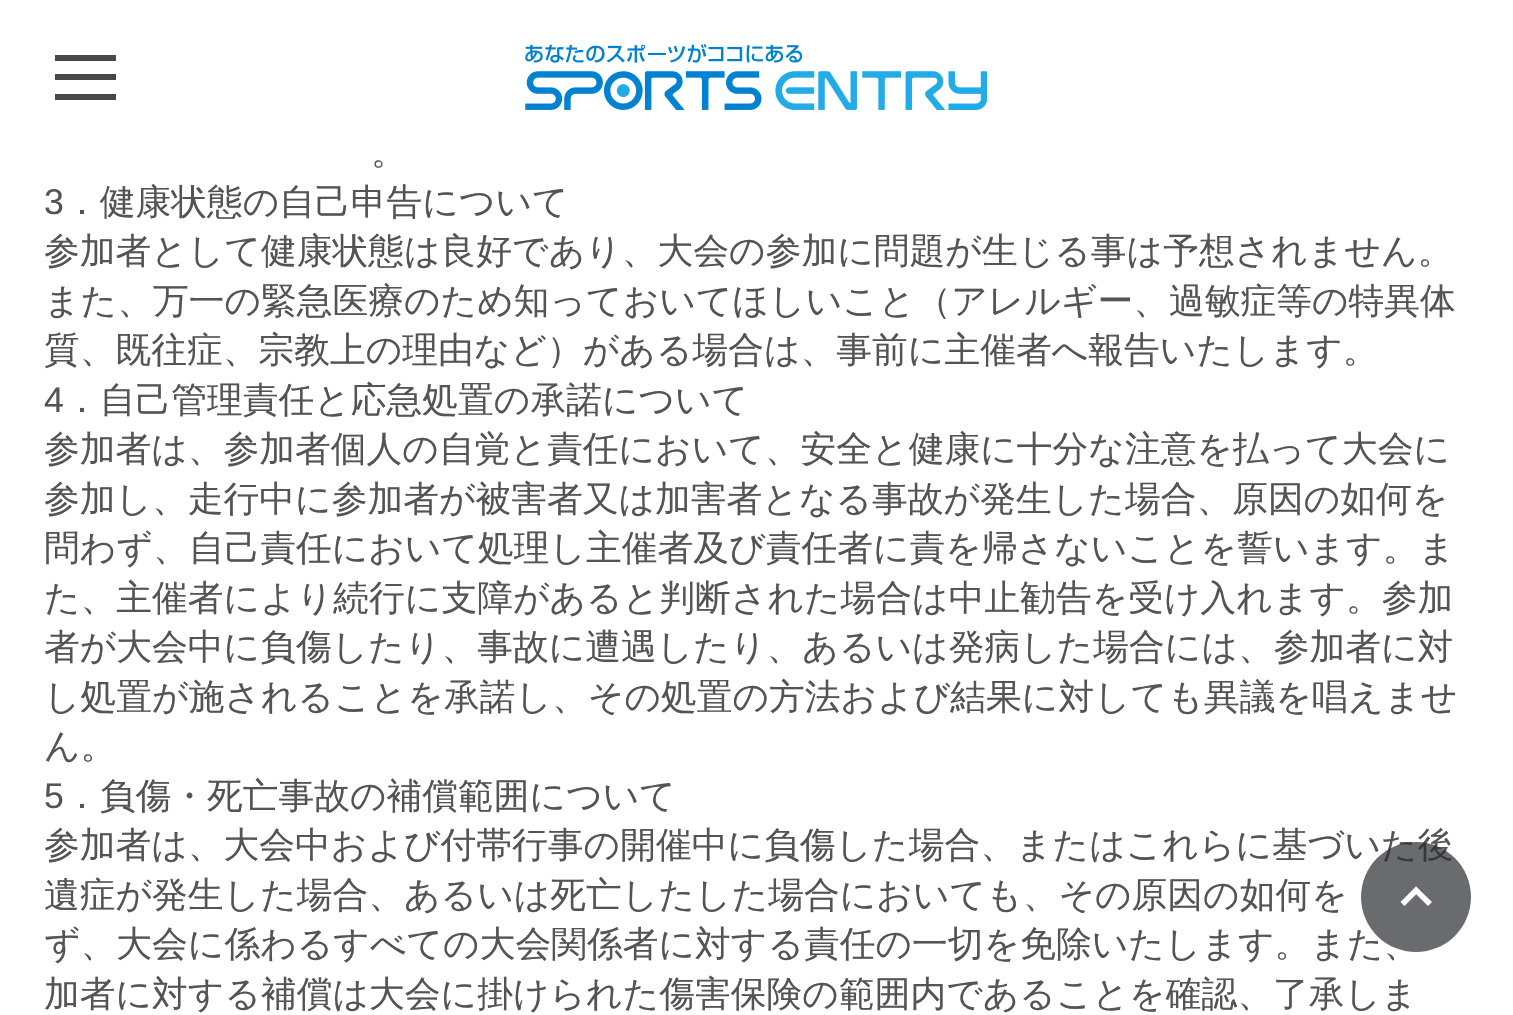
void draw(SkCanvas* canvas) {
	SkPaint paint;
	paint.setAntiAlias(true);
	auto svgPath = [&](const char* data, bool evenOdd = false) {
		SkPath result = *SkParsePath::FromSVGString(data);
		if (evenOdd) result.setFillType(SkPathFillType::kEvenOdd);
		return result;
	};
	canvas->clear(0xffffffff);
	paint.setColor(0xff484848);
	canvas->drawRect(SkRect::MakeXYWH(55, 55, 61, 6), paint);
	canvas->drawRect(SkRect::MakeXYWH(55, 74, 61, 6), paint);
	canvas->drawRect(SkRect::MakeXYWH(55, 94, 61, 6), paint);
	canvas->drawImageRect(SkImages::DeferredFromEncodedData(SkData::MakeFromFileName("img1.png")), SkRect::MakeXYWH(525, 44, 462, 66), SkSamplingOptions());
	SkFont f1(fontMgr->matchFamilyStyle("WenQuanYi Zen Hei", SkFontStyle(500, SkFontStyle::kNormal_Width, SkFontStyle::kUpright_Slant)), 35.75);
	f1.setSubpixel(true);
	paint.setColor(0xff545454);
	canvas->drawString("。", 371, 164, f1, paint);
	SkFont f2(fontMgr->matchFamilyStyle("Liberation Sans", SkFontStyle::Normal()), 35.75);
	f2.setSubpixel(true);
	canvas->drawString("3", 44, 214, f2, paint);
	canvas->drawString("．健康状態の自己申告について", 64, 214, f1, paint);
	canvas->drawString("参加者として健康状態は良好であり、大会の参加に問題が生じる事は予想されません。", 44, 263, f1, paint);
	canvas->drawString("また、万一の緊急医療のため知っておいてほしいこと（アレルギー、過敏症等の特異体", 44, 313, f1, paint);
	canvas->drawString("質、既往症、宗教上の理由など）がある場合は、事前に主催者へ報告いたします。", 44, 362, f1, paint);
	canvas->drawString("4", 44, 412, f2, paint);
	canvas->drawString("．自己管理責任と応急処置の承諾について", 64, 412, f1, paint);
	canvas->drawString("参加者は、参加者個人の自覚と責任において、安全と健康に十分な注意を払って大会に", 44, 461, f1, paint);
	canvas->drawString("参加し、走行中に参加者が被害者又は加害者となる事故が発生した場合、原因の如何を", 44, 511, f1, paint);
	canvas->drawString("問わず、自己責任において処理し主催者及び責任者に責を帰さないことを誓います。ま", 44, 560, f1, paint);
	canvas->drawString("た、主催者により続行に支障があると判断された場合は中止勧告を受け入れます。参加", 44, 610, f1, paint);
	canvas->drawString("者が大会中に負傷したり、事故に遭遇したり、あるいは発病した場合には、参加者に対", 44, 659, f1, paint);
	canvas->drawString("し処置が施されることを承諾し、その処置の方法および結果に対しても異議を唱えませ", 44, 709, f1, paint);
	canvas->drawString("ん。", 44, 758, f1, paint);
	canvas->drawString("5", 44, 808, f2, paint);
	canvas->drawString("．負傷・死亡事故の補償範囲について", 64, 808, f1, paint);
	canvas->drawString("参加者は、大会中および付帯行事の開催中に負傷した場合、またはこれらに基づいた後", 44, 857, f1, paint);
	canvas->drawString("遺症が発生した場合、あるいは死亡したした場合においても、その原因の如何を", 44, 907, f1, paint);
	canvas->drawString("ず、大会に係わるすべての大会関係者に対する責任の一切を免除いたします。また、", 44, 956, f1, paint);
	canvas->drawString("加者に対する補償は大会に掛けられた傷害保険の範囲内であることを確認、了承しま", 44, 1006, f1, paint);
	paint.setColor(0xb3292c30);
	canvas->drawCircle(1416, 897, 55, paint);
	paint.setColor(0xffffffff);
	canvas->drawPath(svgPath("M1400.5 902L1416 886.5L1420 890.5L1404.5 906Z"), paint);
	canvas->drawPath(svgPath("M1412.5 890.5L1416 886.5L1432 902L1428 906Z"), paint);
}
